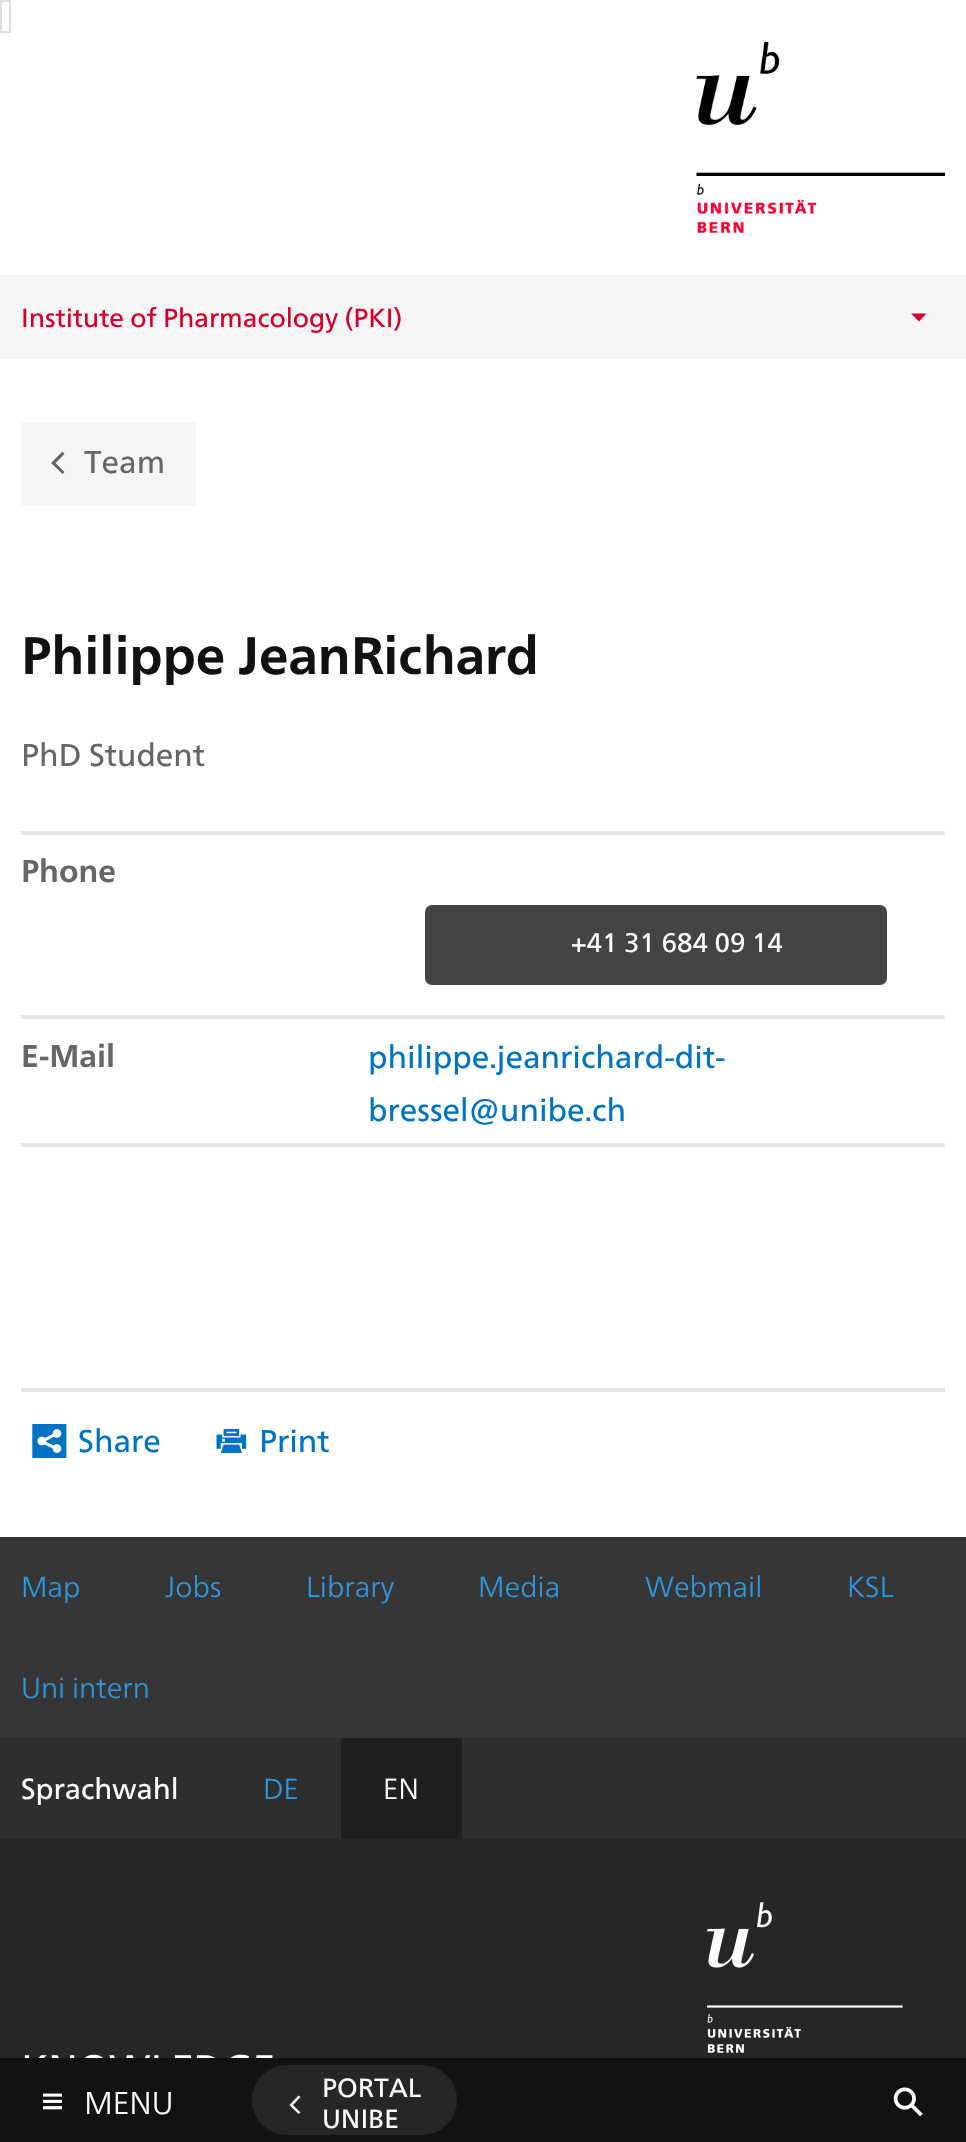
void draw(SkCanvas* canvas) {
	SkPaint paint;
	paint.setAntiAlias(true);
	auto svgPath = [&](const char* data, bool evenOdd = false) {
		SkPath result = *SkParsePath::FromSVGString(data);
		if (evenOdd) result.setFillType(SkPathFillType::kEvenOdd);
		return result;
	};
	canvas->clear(0xffffffff);
	paint.setStroke(true);
	paint.setStrokeWidth(2);
	paint.setColor(0xffdddddd);
	canvas->drawRect(SkRect::MakeXYWH(1, 1, 9, 31), paint);
	canvas->drawImageRect(SkImages::DeferredFromEncodedData(SkData::MakeFromFileName("img1.png")), SkRect::MakeXYWH(696, 42, 249, 191), SkSamplingOptions());
	paint.setStroke(false);
	paint.setColor(0xfff5f5f5);
	canvas->drawRect(SkRect::MakeXYWH(0, 275, 966, 84), paint);
	SkFont f1(fontMgr->matchFamilyStyle("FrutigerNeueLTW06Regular", SkFontStyle::Normal()), 26.25);
	f1.setSubpixel(true);
	paint.setColor(0xffd6002b);
	canvas->drawString("Institute of Pharmacology (PKI)", 21, 327, f1, paint);
	canvas->drawPath(svgPath("M911 313.5L919 321.5L926.5 313.5Z"), paint);
	paint.setColor(0xfff5f5f5);
	canvas->drawRect(SkRect::MakeXYWH(21, 422, 175, 84), paint);
	paint.setColor(0xff666666);
	canvas->drawPath(svgPath("M62.5 474L51 463L62.5 451.5L64.5 454L55.5 463L64.5 472Z"), paint);
	SkFont f2(fontMgr->matchFamilyStyle("FrutigerNeueLTW06Regular", SkFontStyle::Normal()), 31.5);
	f2.setSubpixel(true);
	canvas->drawString("Team", 84, 473, f2, paint);
	paint.setColor(0xff121212);
	canvas->drawRect(SkRect::MakeXYWH(0, 2058, 966, 84), paint);
	canvas->drawImageRect(SkImages::DeferredFromEncodedData(SkData::MakeFromFileName("img2.png")), SkRect::MakeXYWH(43, 2093, 19, 17), SkSamplingOptions());
	SkFont f3(fontMgr->matchFamilyStyle("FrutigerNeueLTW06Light", SkFontStyle(300, SkFontStyle::kNormal_Width, SkFontStyle::kUpright_Slant)), 31.5);
	f3.setSubpixel(true);
	paint.setColor(0xffffffff);
	canvas->drawString("MENU", 84, 2114, f3, paint);
	paint.setColor(0xff262626);
	canvas->drawRoundRect(SkRect::MakeXYWH(252, 2065, 205, 70), 35, 35, paint);
	paint.setColor(0xffffffff);
	canvas->drawString("PORTAL", 322, 2097, f1, paint);
	canvas->drawPath(svgPath("M298.5 2114L289.5 2105L298.5 2095.5L300.5 2097L293 2105L300.5 2112.5Z"), paint);
	canvas->drawString("UNIBE", 322, 2128, f1, paint);
	canvas->drawImageRect(SkImages::DeferredFromEncodedData(SkData::MakeFromFileName("img3.png")), SkRect::MakeXYWH(893, 2087, 30, 30), SkSamplingOptions());
	SkFont f4(fontMgr->matchFamilyStyle("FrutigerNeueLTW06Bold", SkFontStyle::Bold()), 52.5);
	f4.setSubpixel(true);
	paint.setColor(0xff121212);
	canvas->drawString("Philippe JeanRichard", 21, 674, f4, paint);
	paint.setColor(0xff666666);
	canvas->drawString("PhD Student", 21, 766, f2, paint);
	paint.setColor(0xffe5e5e5);
	canvas->drawRect(SkRect::MakeXYWH(21, 831, 924, 4), paint);
	canvas->drawRect(SkRect::MakeXYWH(21, 1143, 924, 4), paint);
	SkFont f5(fontMgr->matchFamilyStyle("FrutigerNeueLTW06Bold", SkFontStyle::Bold()), 31.5);
	f5.setSubpixel(true);
	paint.setColor(0xff666666);
	canvas->drawString("Phone", 21, 882, f5, paint);
	paint.setColor(0xff444444);
	canvas->drawRoundRect(SkRect::MakeXYWH(425, 905, 462, 80), 7, 7, paint);
	SkFont f6(fontMgr->matchFamilyStyle("FrutigerNeueLTW06Regular", SkFontStyle::Normal()), 26.75);
	f6.setSubpixel(true);
	paint.setColor(0xffffffff);
	canvas->drawString("+41 31 684 09 14", 571, 952, f6, paint);
	paint.setColor(0xff666666);
	canvas->drawString("E-Mail", 21, 1067, f5, paint);
	paint.setColor(0xffe5e5e5);
	canvas->drawRect(SkRect::MakeXYWH(21, 1015, 924, 4), paint);
	paint.setColor(0xff0074c4);
	canvas->drawString("philippe.jeanrichard-dit-", 368, 1068, f2, paint);
	canvas->drawString("bressel@unibe.ch", 368, 1121, f2, paint);
	paint.setColor(0xffe5e5e5);
	canvas->drawRect(SkRect::MakeXYWH(21, 1388, 924, 4), paint);
	canvas->drawImageRect(SkImages::DeferredFromEncodedData(SkData::MakeFromFileName("img4.png")), SkRect::MakeXYWH(32, 1424, 35, 34), SkSamplingOptions());
	paint.setColor(0xff0074c4);
	canvas->drawString("Share", 78, 1452, f2, paint);
	canvas->drawImageRect(SkImages::DeferredFromEncodedData(SkData::MakeFromFileName("img5.png")), SkRect::MakeXYWH(216, 1428, 31, 25), SkSamplingOptions());
	canvas->drawString("Print", 259, 1452, f2, paint);
	paint.setColor(0xff262626);
	canvas->drawRect(SkRect::MakeXYWH(0, 1839, 966, 219), paint);
	paint.setColor(0xff363636);
	canvas->drawRect(SkRect::MakeXYWH(0, 1537, 966, 201), paint);
	SkFont f7(fontMgr->matchFamilyStyle("FrutigerNeueLTW06Light", SkFontStyle(300, SkFontStyle::kNormal_Width, SkFontStyle::kUpright_Slant)), 29);
	f7.setSubpixel(true);
	paint.setColor(0xff2d98e0);
	canvas->drawString("Map", 21, 1597, f7, paint);
	canvas->drawString("Jobs", 165, 1597, f7, paint);
	canvas->drawString("Library", 306, 1597, f7, paint);
	canvas->drawString("Media", 478, 1597, f7, paint);
	canvas->drawString("Webmail", 645, 1597, f7, paint);
	canvas->drawString("KSL", 847, 1597, f7, paint);
	canvas->drawString("Uni intern", 21, 1698, f7, paint);
	paint.setColor(0xff2e2e2e);
	canvas->drawRect(SkRect::MakeXYWH(0, 1738, 966, 101), paint);
	SkFont f8(fontMgr->matchFamilyStyle("FrutigerNeueLTW06Regular", SkFontStyle::Normal()), 29);
	f8.setSubpixel(true);
	paint.setColor(0xffffffff);
	canvas->drawString("Sprachwahl", 21, 1799, f8, paint);
	paint.setColor(0xff2d98e0);
	canvas->drawString("DE", 263, 1799, f7, paint);
	paint.setColor(0xff1f1f1f);
	canvas->drawRect(SkRect::MakeXYWH(341, 1738, 121, 101), paint);
	paint.setColor(0xffffffff);
	canvas->drawString("EN", 383, 1799, f7, paint);
	canvas->drawImageRect(SkImages::DeferredFromEncodedData(SkData::MakeFromFileName("img6.png")), SkRect::MakeXYWH(707, 1902, 196, 151), SkSamplingOptions());
	canvas->drawImageRect(SkImages::DeferredFromEncodedData(SkData::MakeFromFileName("img7.png")), SkRect::MakeXYWH(24, 2054, 249, 4), SkSamplingOptions());
}
